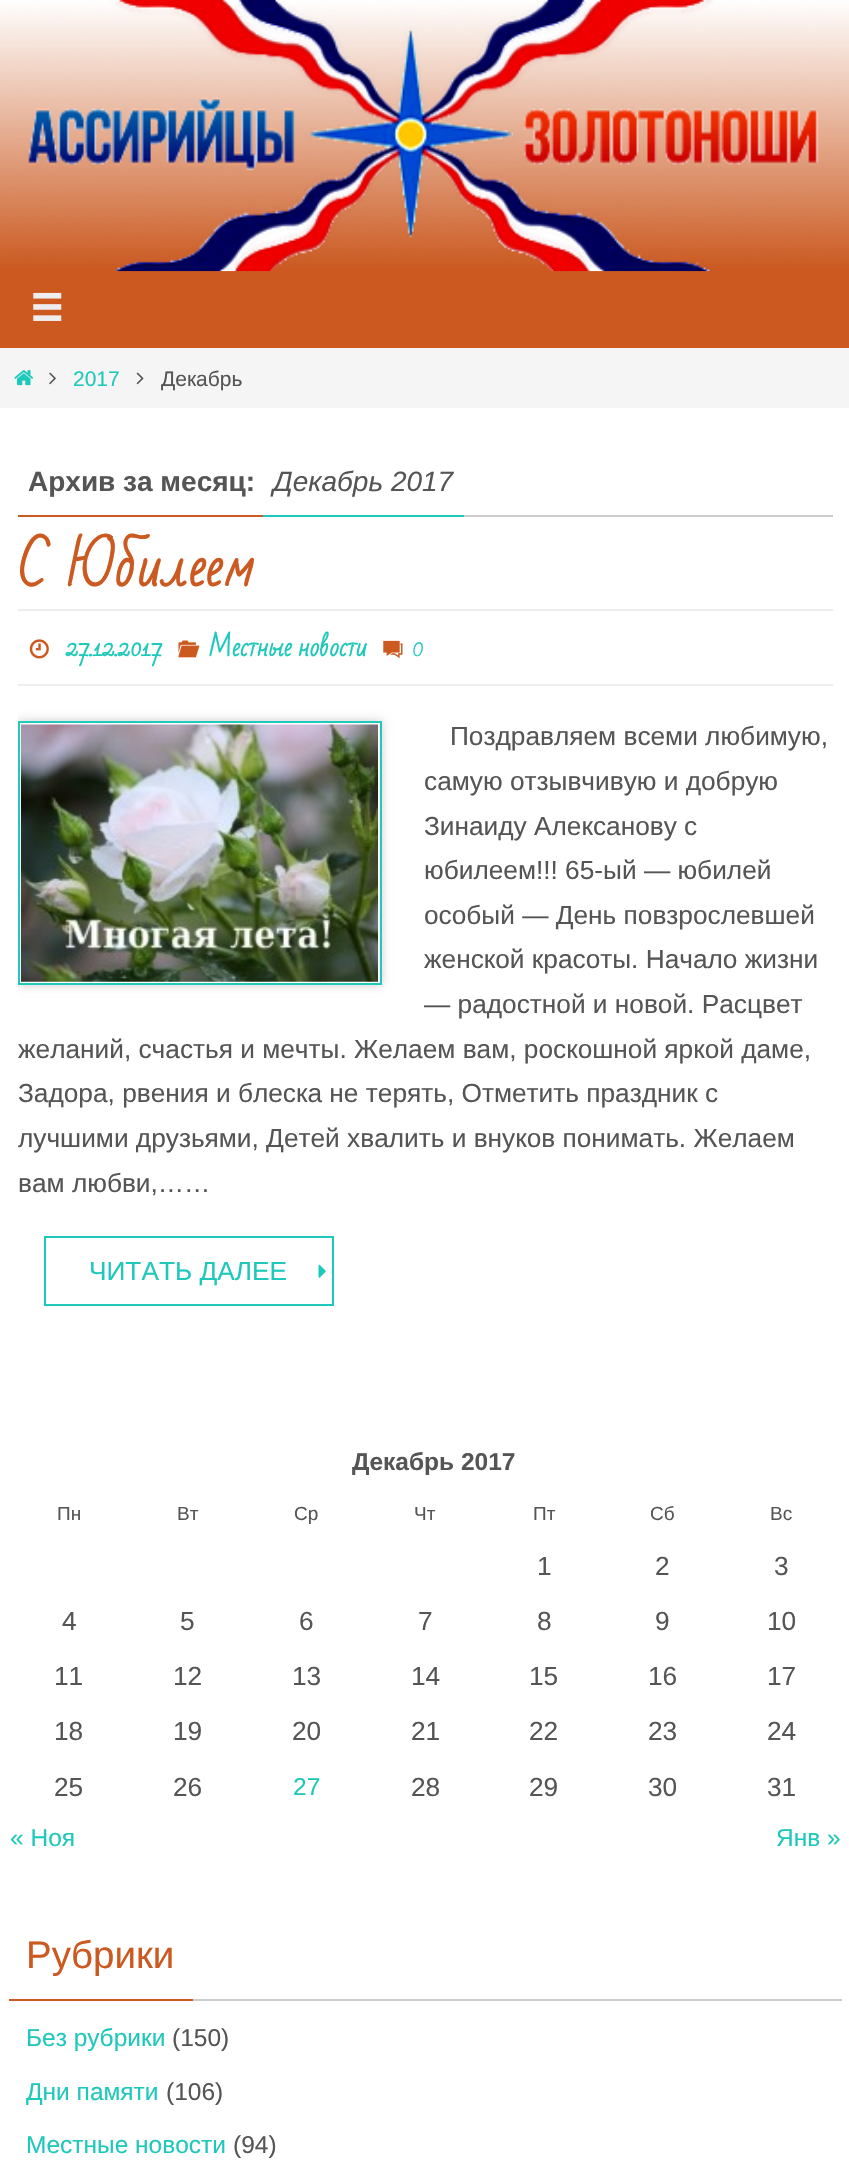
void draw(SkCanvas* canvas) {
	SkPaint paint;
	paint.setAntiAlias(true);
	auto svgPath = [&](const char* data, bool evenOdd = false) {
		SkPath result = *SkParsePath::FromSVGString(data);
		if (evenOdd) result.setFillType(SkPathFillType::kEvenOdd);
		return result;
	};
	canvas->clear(0xffffffff);
	paint.setColor(0xffcb5920);
	canvas->drawRect(SkRect::MakeXYWH(0, 271, 849, 77), paint);
	canvas->drawImageRect(SkImages::DeferredFromEncodedData(SkData::MakeFromFileName("img1.png")), SkRect::MakeXYWH(0, 0, 849, 272), SkSamplingOptions());
	canvas->drawImageRect(SkImages::DeferredFromEncodedData(SkData::MakeFromFileName("img2.png")), SkRect::MakeXYWH(33, 292, 29, 29), SkSamplingOptions());
	paint.setColor(0xfff5f5f5);
	canvas->drawRect(SkRect::MakeXYWH(0, 348, 849, 60), paint);
	canvas->drawImageRect(SkImages::DeferredFromEncodedData(SkData::MakeFromFileName("img3.png")), SkRect::MakeXYWH(14, 370, 20, 16), SkSamplingOptions());
	canvas->drawImageRect(SkImages::DeferredFromEncodedData(SkData::MakeFromFileName("img4.png")), SkRect::MakeXYWH(49, 372, 7, 13), SkSamplingOptions());
	SkFont f1(fontMgr->matchFamilyStyle("Liberation Sans", SkFontStyle::Normal()), 21);
	f1.setSubpixel(true);
	paint.setColor(0xff1ec8bb);
	canvas->drawString("2017", 73, 386, f1, paint);
	canvas->drawImageRect(SkImages::DeferredFromEncodedData(SkData::MakeFromFileName("img5.png")), SkRect::MakeXYWH(136, 372, 8, 13), SkSamplingOptions());
	paint.setColor(0xff555555);
	canvas->drawString("Декабрь", 161, 386, f1, paint);
	paint.setColor(0xffcccccc);
	canvas->drawRect(SkRect::MakeXYWH(464, 515, 369, 2), paint);
	paint.setColor(0xffcb5920);
	canvas->drawRect(SkRect::MakeXYWH(18, 515, 245, 2), paint);
	SkFont f2(fontMgr->matchFamilyStyle("Liberation Sans", SkFontStyle::Bold()), 28);
	f2.setSubpixel(true);
	paint.setColor(0xff555555);
	canvas->drawString("Архив за месяц:", 28, 491, f2, paint);
	paint.setColor(0xff1ec8bb);
	canvas->drawRect(SkRect::MakeXYWH(263, 515, 201, 2), paint);
	SkFont f3(fontMgr->matchFamilyStyle("Liberation Sans", SkFontStyle::Italic()), 28);
	f3.setSubpixel(true);
	paint.setColor(0xff555555);
	canvas->drawString("Декабрь 2017", 273, 491, f3, paint);
	SkFont f4(fontMgr->matchFamilyStyle("Bad Script", SkFontStyle::Bold()), 52.5);
	f4.setSubpixel(true);
	paint.setColor(0xffcb5920);
	canvas->drawString("С Юбилеем", 18, 586, f4, paint);
	paint.setColor(0xffeeeeee);
	canvas->drawRect(SkRect::MakeXYWH(18, 609, 815, 2), paint);
	canvas->drawRect(SkRect::MakeXYWH(18, 684, 815, 2), paint);
	canvas->drawImageRect(SkImages::DeferredFromEncodedData(SkData::MakeFromFileName("img6.png")), SkRect::MakeXYWH(29, 639, 20, 20), SkSamplingOptions());
	SkFont f5(fontMgr->matchFamilyStyle("Bad Script", SkFontStyle::Bold()), 24.5);
	f5.setSubpixel(true);
	paint.setColor(0xff1ec8bb);
	canvas->drawString("27.12.2017", 66, 656, f5, paint);
	canvas->drawImageRect(SkImages::DeferredFromEncodedData(SkData::MakeFromFileName("img7.png")), SkRect::MakeXYWH(178, 640, 22, 18), SkSamplingOptions());
	canvas->drawString("Местные новости", 208, 656, f5, paint);
	canvas->drawImageRect(SkImages::DeferredFromEncodedData(SkData::MakeFromFileName("img8.png")), SkRect::MakeXYWH(383, 640, 20, 18), SkSamplingOptions());
	SkFont f6(fontMgr->matchFamilyStyle("Bad Script", SkFontStyle::Normal()), 26.25);
	f6.setSubpixel(true);
	canvas->drawString("0", 412, 656, f6, paint);
	canvas->save();
	canvas->clipRect(SkRect::MakeXYWH(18, 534, 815, 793));
	canvas->clipPath(svgPath("M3 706H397V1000H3ZM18 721H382V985H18Z", true), true);
	paint.setColor(0xffcdcdcd);
	paint.setMaskFilter(SkMaskFilter::MakeBlur(kNormal_SkBlurStyle, 4.5));
	canvas->drawRect(SkRect::MakeXYWH(18, 721, 364, 264), paint);
	paint.setMaskFilter(nullptr);
	canvas->restore();
	paint.setStroke(true);
	paint.setStrokeWidth(2);
	paint.setColor(0xff20c9bc);
	canvas->drawRect(SkRect::MakeXYWH(19, 722, 362, 262), paint);
	canvas->drawImageRect(SkImages::DeferredFromEncodedData(SkData::MakeFromFileName("img9.png")), SkRect::MakeXYWH(21, 724, 357, 258), SkSamplingOptions());
	SkFont f7(fontMgr->matchFamilyStyle("Liberation Sans", SkFontStyle::Normal()), 26.25);
	f7.setSubpixel(true);
	paint.setStroke(false);
	paint.setColor(0xff555555);
	canvas->drawString("Поздравляем всеми любимую,", 450, 745, f7, paint);
	canvas->drawString("самую отзывчивую и добрую", 424, 790, f7, paint);
	canvas->drawString("Зинаиду Алексанову с", 424, 835, f7, paint);
	canvas->drawString("юбилеем!!! 65-ый — юбилей", 424, 879, f7, paint);
	canvas->drawString("особый — День повзрослевшей", 424, 924, f7, paint);
	canvas->drawString("женской красоты. Начало жизни", 424, 968, f7, paint);
	canvas->drawString("— радостной и новой. Расцвет", 424, 1013, f7, paint);
	canvas->drawString("желаний, счастья и мечты. Желаем вам, роскошной яркой даме,", 18, 1058, f7, paint);
	canvas->drawString("Задора, рвения и блеска не терять, Отметить праздник с", 18, 1102, f7, paint);
	canvas->drawString("лучшими друзьями, Детей хвалить и внуков понимать. Желаем", 18, 1147, f7, paint);
	canvas->drawString("вам любви,……", 18, 1192, f7, paint);
	paint.setStroke(true);
	paint.setColor(0xff1ec8bb);
	canvas->drawRect(SkRect::MakeXYWH(45, 1237, 288, 68), paint);
	paint.setStroke(false);
	canvas->drawString("ЧИТАТЬ ДАЛЕЕ", 89, 1280, f7, paint);
	canvas->drawImageRect(SkImages::DeferredFromEncodedData(SkData::MakeFromFileName("img10.png")), SkRect::MakeXYWH(318, 1264, 8, 14), SkSamplingOptions());
	SkFont f8(fontMgr->matchFamilyStyle("Liberation Sans", SkFontStyle::Bold()), 24.5);
	f8.setSubpixel(true);
	paint.setColor(0xff555555);
	canvas->drawString("Декабрь 2017", 352, 1470, f8, paint);
	SkFont f9(fontMgr->matchFamilyStyle("Liberation Sans", SkFontStyle::Normal()), 19);
	f9.setSubpixel(true);
	canvas->drawString("Пн", 57, 1520, f9, paint);
	canvas->drawString("Вт", 177, 1520, f9, paint);
	canvas->drawString("Ср", 294, 1520, f9, paint);
	canvas->drawString("Чт", 414, 1520, f9, paint);
	canvas->drawString("Пт", 533, 1520, f9, paint);
	canvas->drawString("Сб", 650, 1520, f9, paint);
	canvas->drawString("Вс", 770, 1520, f9, paint);
	canvas->drawString("1", 537, 1575, f7, paint);
	canvas->drawString("2", 655, 1575, f7, paint);
	canvas->drawString("3", 774, 1575, f7, paint);
	canvas->drawString("4", 62, 1630, f7, paint);
	canvas->drawString("5", 180, 1630, f7, paint);
	canvas->drawString("6", 299, 1630, f7, paint);
	canvas->drawString("7", 418, 1630, f7, paint);
	canvas->drawString("8", 537, 1630, f7, paint);
	canvas->drawString("9", 655, 1630, f7, paint);
	canvas->drawString("10", 767, 1630, f7, paint);
	canvas->drawString("11", 54, 1685, f7, paint);
	canvas->drawString("12", 173, 1685, f7, paint);
	canvas->drawString("13", 292, 1685, f7, paint);
	canvas->drawString("14", 411, 1685, f7, paint);
	canvas->drawString("15", 529, 1685, f7, paint);
	canvas->drawString("16", 648, 1685, f7, paint);
	canvas->drawString("17", 767, 1685, f7, paint);
	canvas->drawString("18", 54, 1740, f7, paint);
	canvas->drawString("19", 173, 1740, f7, paint);
	canvas->drawString("20", 292, 1740, f7, paint);
	canvas->drawString("21", 411, 1740, f7, paint);
	canvas->drawString("22", 529, 1740, f7, paint);
	canvas->drawString("23", 648, 1740, f7, paint);
	canvas->drawString("24", 767, 1740, f7, paint);
	canvas->drawString("25", 54, 1796, f7, paint);
	canvas->drawString("26", 173, 1796, f7, paint);
	SkFont f10(fontMgr->matchFamilyStyle("Liberation Sans", SkFontStyle::Normal()), 24.5);
	f10.setSubpixel(true);
	paint.setColor(0xff1ec8bb);
	canvas->drawString("27", 293, 1795, f10, paint);
	paint.setColor(0xff555555);
	canvas->drawString("28", 411, 1796, f7, paint);
	canvas->drawString("29", 529, 1796, f7, paint);
	canvas->drawString("30", 648, 1796, f7, paint);
	canvas->drawString("31", 767, 1796, f7, paint);
	paint.setColor(0xff1ec8bb);
	canvas->drawString("« Ноя", 10, 1846, f10, paint);
	canvas->drawString("Янв »", 776, 1846, f10, paint);
	paint.setColor(0xffcccccc);
	canvas->drawRect(SkRect::MakeXYWH(193, 1999, 649, 2), paint);
	paint.setColor(0xffcb5920);
	canvas->drawRect(SkRect::MakeXYWH(9, 1999, 184, 2), paint);
	SkFont f11(fontMgr->matchFamilyStyle("Liberation Sans", SkFontStyle::Normal()), 38.5);
	f11.setSubpixel(true);
	canvas->drawString("Рубрики", 26, 1968, f11, paint);
	paint.setColor(0xff1ec8bb);
	canvas->drawString("Без рубрики", 26, 2046, f10, paint);
	paint.setColor(0xff555555);
	canvas->drawString("(150)", 172, 2046, f10, paint);
	paint.setColor(0xff1ec8bb);
	canvas->drawString("Дни памяти", 26, 2100, f10, paint);
	paint.setColor(0xff555555);
	canvas->drawString("(106)", 166, 2100, f10, paint);
	paint.setColor(0xff1ec8bb);
	canvas->drawString("Местные новости", 26, 2153, f10, paint);
	paint.setColor(0xff555555);
	canvas->drawString("(94)", 233, 2153, f10, paint);
}
